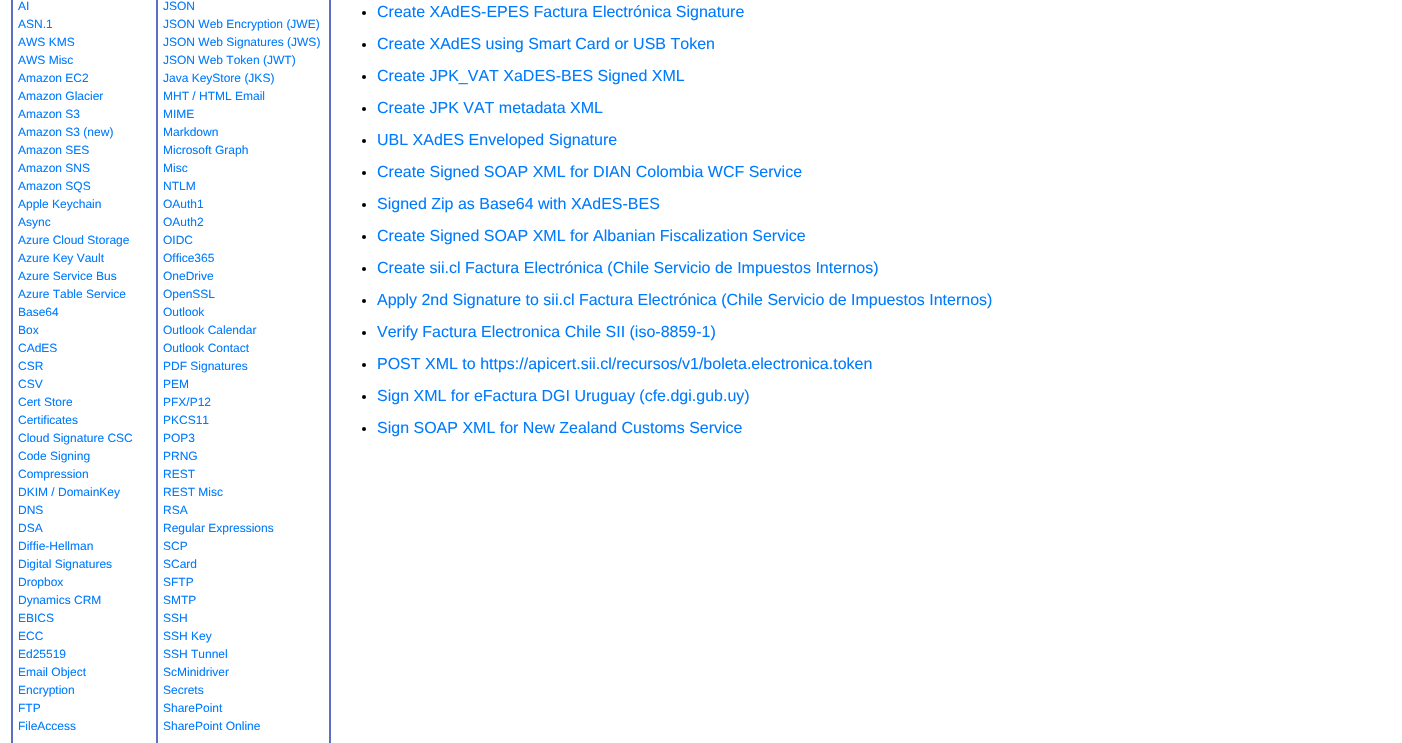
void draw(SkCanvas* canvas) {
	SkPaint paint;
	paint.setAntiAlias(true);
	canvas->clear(0xffffffff);
	paint.setStroke(true);
	paint.setStrokeWidth(1);
	paint.setColor(0xff5b70c2);
	canvas->drawRect(SkRect::MakeXYWH(11.5, -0.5, 319, 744), paint);
	canvas->drawRect(SkRect::MakeXYWH(12.5, -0.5, 144, 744), paint);
	SkFont f1(fontMgr->matchFamilyStyle("Liberation Sans", SkFontStyle::Normal()), 12);
	f1.setSubpixel(true);
	paint.setStroke(false);
	paint.setColor(0xff007bff);
	canvas->drawString("AI", 18, 10, f1, paint);
	canvas->drawString("ASN.1", 18, 28, f1, paint);
	canvas->drawString("AWS KMS", 18, 46, f1, paint);
	canvas->drawString("AWS Misc", 18, 64, f1, paint);
	canvas->drawString("Amazon EC2", 18, 82, f1, paint);
	canvas->drawString("Amazon Glacier", 18, 100, f1, paint);
	canvas->drawString("Amazon S3", 18, 118, f1, paint);
	canvas->drawString("Amazon S3 (new)", 18, 136, f1, paint);
	canvas->drawString("Amazon SES", 18, 154, f1, paint);
	canvas->drawString("Amazon SNS", 18, 172, f1, paint);
	canvas->drawString("Amazon SQS", 18, 190, f1, paint);
	canvas->drawString("Apple Keychain", 18, 208, f1, paint);
	canvas->drawString("Async", 18, 226, f1, paint);
	canvas->drawString("Azure Cloud Storage", 18, 244, f1, paint);
	canvas->drawString("Azure Key Vault", 18, 262, f1, paint);
	canvas->drawString("Azure Service Bus", 18, 280, f1, paint);
	canvas->drawString("Azure Table Service", 18, 298, f1, paint);
	canvas->drawString("Base64", 18, 316, f1, paint);
	canvas->drawString("Box", 18, 334, f1, paint);
	canvas->drawString("CAdES", 18, 352, f1, paint);
	canvas->drawString("CSR", 18, 370, f1, paint);
	canvas->drawString("CSV", 18, 388, f1, paint);
	canvas->drawString("Cert Store", 18, 406, f1, paint);
	canvas->drawString("Certificates", 18, 424, f1, paint);
	canvas->drawString("Cloud Signature CSC", 18, 442, f1, paint);
	canvas->drawString("Code Signing", 18, 460, f1, paint);
	canvas->drawString("Compression", 18, 478, f1, paint);
	canvas->drawString("DKIM / DomainKey", 18, 496, f1, paint);
	canvas->drawString("DNS", 18, 514, f1, paint);
	canvas->drawString("DSA", 18, 532, f1, paint);
	canvas->drawString("Diffie-Hellman", 18, 550, f1, paint);
	canvas->drawString("Digital Signatures", 18, 568, f1, paint);
	canvas->drawString("Dropbox", 18, 586, f1, paint);
	canvas->drawString("Dynamics CRM", 18, 604, f1, paint);
	canvas->drawString("EBICS", 18, 622, f1, paint);
	canvas->drawString("ECC", 18, 640, f1, paint);
	canvas->drawString("Ed25519", 18, 658, f1, paint);
	canvas->drawString("Email Object", 18, 676, f1, paint);
	canvas->drawString("Encryption", 18, 694, f1, paint);
	canvas->drawString("FTP", 18, 712, f1, paint);
	canvas->drawString("FileAccess", 18, 730, f1, paint);
	paint.setStroke(true);
	paint.setColor(0xff5b70c2);
	canvas->drawRect(SkRect::MakeXYWH(157.5, -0.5, 172, 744), paint);
	paint.setStroke(false);
	paint.setColor(0xff007bff);
	canvas->drawString("JSON", 163, 10, f1, paint);
	canvas->drawString("JSON Web Encryption (JWE)", 163, 28, f1, paint);
	canvas->drawString("JSON Web Signatures (JWS)", 163, 46, f1, paint);
	canvas->drawString("JSON Web Token (JWT)", 163, 64, f1, paint);
	canvas->drawString("Java KeyStore (JKS)", 163, 82, f1, paint);
	canvas->drawString("MHT / HTML Email", 163, 100, f1, paint);
	canvas->drawString("MIME", 163, 118, f1, paint);
	canvas->drawString("Markdown", 163, 136, f1, paint);
	canvas->drawString("Microsoft Graph", 163, 154, f1, paint);
	canvas->drawString("Misc", 163, 172, f1, paint);
	canvas->drawString("NTLM", 163, 190, f1, paint);
	canvas->drawString("OAuth1", 163, 208, f1, paint);
	canvas->drawString("OAuth2", 163, 226, f1, paint);
	canvas->drawString("OIDC", 163, 244, f1, paint);
	canvas->drawString("Office365", 163, 262, f1, paint);
	canvas->drawString("OneDrive", 163, 280, f1, paint);
	canvas->drawString("OpenSSL", 163, 298, f1, paint);
	canvas->drawString("Outlook", 163, 316, f1, paint);
	canvas->drawString("Outlook Calendar", 163, 334, f1, paint);
	canvas->drawString("Outlook Contact", 163, 352, f1, paint);
	canvas->drawString("PDF Signatures", 163, 370, f1, paint);
	canvas->drawString("PEM", 163, 388, f1, paint);
	canvas->drawString("PFX/P12", 163, 406, f1, paint);
	canvas->drawString("PKCS11", 163, 424, f1, paint);
	canvas->drawString("POP3", 163, 442, f1, paint);
	canvas->drawString("PRNG", 163, 460, f1, paint);
	canvas->drawString("REST", 163, 478, f1, paint);
	canvas->drawString("REST Misc", 163, 496, f1, paint);
	canvas->drawString("RSA", 163, 514, f1, paint);
	canvas->drawString("Regular Expressions", 163, 532, f1, paint);
	canvas->drawString("SCP", 163, 550, f1, paint);
	canvas->drawString("SCard", 163, 568, f1, paint);
	canvas->drawString("SFTP", 163, 586, f1, paint);
	canvas->drawString("SMTP", 163, 604, f1, paint);
	canvas->drawString("SSH", 163, 622, f1, paint);
	canvas->drawString("SSH Key", 163, 640, f1, paint);
	canvas->drawString("SSH Tunnel", 163, 658, f1, paint);
	canvas->drawString("ScMinidriver", 163, 676, f1, paint);
	canvas->drawString("Secrets", 163, 694, f1, paint);
	canvas->drawString("SharePoint", 163, 712, f1, paint);
	canvas->drawString("SharePoint Online", 163, 730, f1, paint);
	paint.setColor(0xff000000);
	canvas->drawCircle(364, 13, 2, paint);
	SkFont f2(fontMgr->matchFamilyStyle("Liberation Sans", SkFontStyle::Normal()), 16);
	f2.setSubpixel(true);
	paint.setColor(0xff007bff);
	canvas->drawString("Create XAdES-EPES Factura Electrónica Signature", 377, 17, f2, paint);
	paint.setColor(0xff000000);
	canvas->drawCircle(364, 45, 2, paint);
	paint.setColor(0xff007bff);
	canvas->drawString("Create XAdES using Smart Card or USB Token", 377, 49, f2, paint);
	paint.setColor(0xff000000);
	canvas->drawCircle(364, 77, 2, paint);
	paint.setColor(0xff007bff);
	canvas->drawString("Create JPK_VAT XaDES-BES Signed XML", 377, 81, f2, paint);
	paint.setColor(0xff000000);
	canvas->drawCircle(364, 109, 2, paint);
	paint.setColor(0xff007bff);
	canvas->drawString("Create JPK VAT metadata XML", 377, 113, f2, paint);
	paint.setColor(0xff000000);
	canvas->drawCircle(364, 141, 2, paint);
	paint.setColor(0xff007bff);
	canvas->drawString("UBL XAdES Enveloped Signature", 377, 145, f2, paint);
	paint.setColor(0xff000000);
	canvas->drawCircle(364, 173, 2, paint);
	paint.setColor(0xff007bff);
	canvas->drawString("Create Signed SOAP XML for DIAN Colombia WCF Service", 377, 177, f2, paint);
	paint.setColor(0xff000000);
	canvas->drawCircle(364, 205, 2, paint);
	paint.setColor(0xff007bff);
	canvas->drawString("Signed Zip as Base64 with XAdES-BES", 377, 209, f2, paint);
	paint.setColor(0xff000000);
	canvas->drawCircle(364, 237, 2, paint);
	paint.setColor(0xff007bff);
	canvas->drawString("Create Signed SOAP XML for Albanian Fiscalization Service", 377, 241, f2, paint);
	paint.setColor(0xff000000);
	canvas->drawCircle(364, 269, 2, paint);
	paint.setColor(0xff007bff);
	canvas->drawString("Create sii.cl Factura Electrónica (Chile Servicio de Impuestos Internos)", 377, 273, f2, paint);
	paint.setColor(0xff000000);
	canvas->drawCircle(364, 301, 2, paint);
	paint.setColor(0xff007bff);
	canvas->drawString("Apply 2nd Signature to sii.cl Factura Electrónica (Chile Servicio de Impuestos Internos)", 377, 305, f2, paint);
	paint.setColor(0xff000000);
	canvas->drawCircle(364, 333, 2, paint);
	paint.setColor(0xff007bff);
	canvas->drawString("Verify Factura Electronica Chile SII (iso-8859-1)", 377, 337, f2, paint);
	paint.setColor(0xff000000);
	canvas->drawCircle(364, 365, 2, paint);
	paint.setColor(0xff007bff);
	canvas->drawString("POST XML to https://apicert.sii.cl/recursos/v1/boleta.electronica.token", 377, 369, f2, paint);
	paint.setColor(0xff000000);
	canvas->drawCircle(364, 397, 2, paint);
	paint.setColor(0xff007bff);
	canvas->drawString("Sign XML for eFactura DGI Uruguay (cfe.dgi.gub.uy)", 377, 401, f2, paint);
	paint.setColor(0xff000000);
	canvas->drawCircle(364, 429, 2, paint);
	paint.setColor(0xff007bff);
	canvas->drawString("Sign SOAP XML for New Zealand Customs Service", 377, 433, f2, paint);
}
